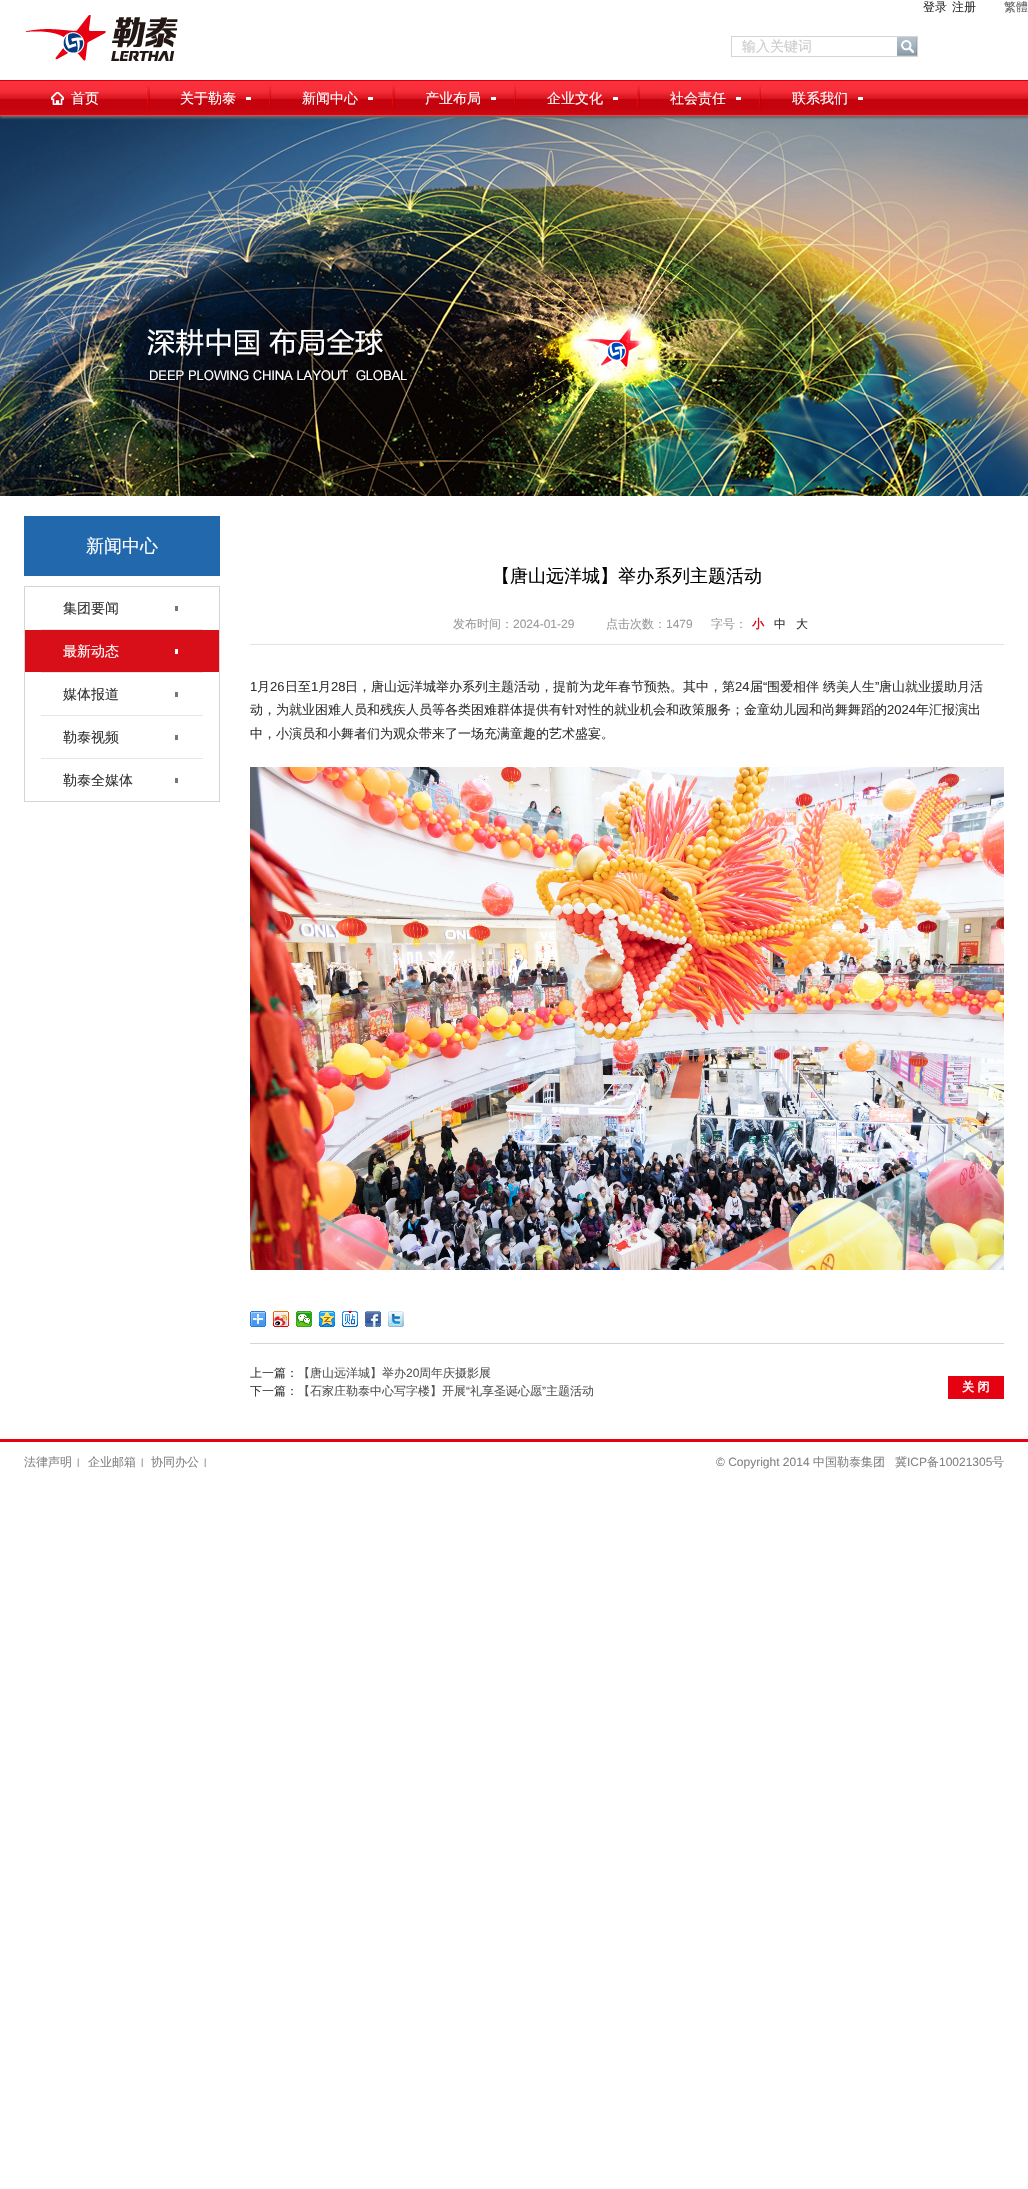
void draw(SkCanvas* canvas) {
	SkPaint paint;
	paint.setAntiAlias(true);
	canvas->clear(0xffffffff);
	SkFont f1(fontMgr->matchFamilyStyle("WenQuanYi Zen Hei", SkFontStyle(500, SkFontStyle::kNormal_Width, SkFontStyle::kUpright_Slant)), 12);
	f1.setSubpixel(true);
	paint.setColor(0xff333333);
	canvas->drawString("登录", 923, 11, f1, paint);
	canvas->drawString("注册", 952, 11, f1, paint);
	paint.setColor(0xff636363);
	canvas->drawString("繁體", 1004, 11, f1, paint);
	canvas->drawImageRect(SkImages::DeferredFromEncodedData(SkData::MakeFromFileName("img1.png")), SkRect::MakeXYWH(26, 15, 152, 46), SkSamplingOptions());
	paint.setStroke(true);
	paint.setStrokeWidth(1);
	paint.setColor(0xffd5d5d5);
	canvas->drawRect(SkRect::MakeXYWH(731.5, 36.5, 186, 20), paint);
	SkFont f2(fontMgr->matchFamilyStyle("WenQuanYi Zen Hei", SkFontStyle(500, SkFontStyle::kNormal_Width, SkFontStyle::kUpright_Slant)), 14);
	f2.setSubpixel(true);
	paint.setStroke(false);
	paint.setColor(0xffcccccc);
	canvas->drawString("输入关键词", 742, 51, f2, paint);
	canvas->drawImageRect(SkImages::DeferredFromEncodedData(SkData::MakeFromFileName("img2.png")), SkRect::MakeXYWH(897, 37, 20, 19), SkSamplingOptions());
	canvas->drawImageRect(SkImages::DeferredFromEncodedData(SkData::MakeFromFileName("img7.png")), SkRect::MakeXYWH(0, 116, 1028, 380), SkSamplingOptions());
	paint.setColor(0xff666666);
	paint.setMaskFilter(SkMaskFilter::MakeBlur(kNormal_SkBlurStyle, 1));
	canvas->drawRect(SkRect::MakeXYWH(0, 82, 1028, 36), paint);
	paint.setMaskFilter(nullptr);
	canvas->drawImageRect(SkImages::DeferredFromEncodedData(SkData::MakeFromFileName("img3.png")), SkRect::MakeXYWH(0, 80, 1028, 36), SkSamplingOptions());
	canvas->drawImageRect(SkImages::DeferredFromEncodedData(SkData::MakeFromFileName("img4.png")), SkRect::MakeXYWH(51, 92, 13, 13), SkSamplingOptions());
	paint.setColor(0xffffffff);
	canvas->drawString("首页", 71, 103, f2, paint);
	canvas->drawImageRect(SkImages::DeferredFromEncodedData(SkData::MakeFromFileName("img5.png")), SkRect::MakeXYWH(147, 85, 3, 25), SkSamplingOptions());
	canvas->drawString("关于勒泰", 180, 103, f2, paint);
	canvas->drawRect(SkRect::MakeXYWH(246, 97, 5, 3), paint);
	canvas->drawImageRect(SkImages::DeferredFromEncodedData(SkData::MakeFromFileName("img6.png")), SkRect::MakeXYWH(269, 85, 2, 25), SkSamplingOptions());
	canvas->drawString("新闻中心", 302, 103, f2, paint);
	canvas->drawRect(SkRect::MakeXYWH(368, 97, 5, 3), paint);
	canvas->drawImageRect(SkImages::DeferredFromEncodedData(SkData::MakeFromFileName("img5.png")), SkRect::MakeXYWH(392, 85, 3, 25), SkSamplingOptions());
	canvas->drawString("产业布局", 425, 103, f2, paint);
	canvas->drawRect(SkRect::MakeXYWH(491, 97, 5, 3), paint);
	canvas->drawImageRect(SkImages::DeferredFromEncodedData(SkData::MakeFromFileName("img6.png")), SkRect::MakeXYWH(514, 85, 2, 25), SkSamplingOptions());
	canvas->drawString("企业文化", 547, 103, f2, paint);
	canvas->drawRect(SkRect::MakeXYWH(613, 97, 5, 3), paint);
	canvas->drawImageRect(SkImages::DeferredFromEncodedData(SkData::MakeFromFileName("img5.png")), SkRect::MakeXYWH(637, 85, 3, 25), SkSamplingOptions());
	canvas->drawString("社会责任", 670, 103, f2, paint);
	canvas->drawRect(SkRect::MakeXYWH(736, 97, 5, 3), paint);
	canvas->drawImageRect(SkImages::DeferredFromEncodedData(SkData::MakeFromFileName("img6.png")), SkRect::MakeXYWH(759, 85, 2, 25), SkSamplingOptions());
	canvas->drawString("联系我们", 792, 103, f2, paint);
	canvas->drawRect(SkRect::MakeXYWH(858, 97, 5, 3), paint);
	paint.setColor(0xff2168ac);
	canvas->drawRect(SkRect::MakeXYWH(24, 516, 196, 60), paint);
	SkFont f3(fontMgr->matchFamilyStyle("WenQuanYi Zen Hei", SkFontStyle(500, SkFontStyle::kNormal_Width, SkFontStyle::kUpright_Slant)), 18);
	f3.setSubpixel(true);
	paint.setColor(0xffffffff);
	canvas->drawString("新闻中心", 86, 552, f3, paint);
	paint.setStroke(true);
	paint.setColor(0xffd5d5d5);
	canvas->drawRect(SkRect::MakeXYWH(24.5, 586.5, 195, 215), paint);
	paint.setStroke(false);
	paint.setColor(0xff767676);
	canvas->drawRect(SkRect::MakeXYWH(175, 606, 3, 5), paint);
	paint.setColor(0xff333333);
	canvas->drawString("集团要闻", 63, 613, f2, paint);
	paint.setColor(0xffe6e6e6);
	canvas->drawRect(SkRect::MakeXYWH(41, 629, 162, 1), paint);
	paint.setColor(0xffd80e19);
	canvas->drawRect(SkRect::MakeXYWH(25, 630, 194, 42), paint);
	paint.setColor(0xffffffff);
	canvas->drawRect(SkRect::MakeXYWH(175, 649, 3, 5), paint);
	canvas->drawString("最新动态", 63, 656, f2, paint);
	paint.setColor(0xffe6e6e6);
	canvas->drawRect(SkRect::MakeXYWH(41, 672, 162, 1), paint);
	paint.setColor(0xff767676);
	canvas->drawRect(SkRect::MakeXYWH(175, 692, 3, 5), paint);
	paint.setColor(0xff333333);
	canvas->drawString("媒体报道", 63, 699, f2, paint);
	paint.setColor(0xffe6e6e6);
	canvas->drawRect(SkRect::MakeXYWH(41, 715, 162, 1), paint);
	paint.setColor(0xff767676);
	canvas->drawRect(SkRect::MakeXYWH(175, 735, 3, 5), paint);
	paint.setColor(0xff333333);
	canvas->drawString("勒泰视频", 63, 742, f2, paint);
	paint.setColor(0xffe6e6e6);
	canvas->drawRect(SkRect::MakeXYWH(41, 758, 162, 1), paint);
	paint.setColor(0xff767676);
	canvas->drawRect(SkRect::MakeXYWH(175, 778, 3, 5), paint);
	paint.setColor(0xff333333);
	canvas->drawString("勒泰全媒体", 63, 785, f2, paint);
	paint.setColor(0xff000000);
	canvas->drawString("【唐山远洋城】举办系列主题活动", 492, 582, f3, paint);
	paint.setColor(0xffe3e3e3);
	canvas->drawRect(SkRect::MakeXYWH(250, 644, 754, 1), paint);
	paint.setColor(0xff9a9a9a);
	canvas->drawString("发布时间：", 453, 628, f1, paint);
	SkFont f4(fontMgr->matchFamilyStyle("Liberation Sans", SkFontStyle::Normal()), 12);
	f4.setSubpixel(true);
	canvas->drawString("2024-01-29", 513, 628, f4, paint);
	canvas->drawString("点击次数：", 606, 628, f1, paint);
	canvas->drawString("1479", 666, 628, f4, paint);
	canvas->drawString("字号：", 711, 628, f1, paint);
	SkFont f5(fontMgr->matchFamilyStyle("WenQuanYi Zen Hei", SkFontStyle::Bold()), 12);
	f5.setSubpixel(true);
	paint.setColor(0xffd80e19);
	canvas->drawString("小", 752, 628, f5, paint);
	paint.setColor(0xff333333);
	canvas->drawString("中", 774, 628, f1, paint);
	canvas->drawString("大", 796, 628, f1, paint);
	SkFont f6(fontMgr->matchFamilyStyle("Liberation Sans", SkFontStyle::Normal()), 13);
	f6.setSubpixel(true);
	canvas->drawString("1", 250, 691, f6, paint);
	SkFont f7(fontMgr->matchFamilyStyle("WenQuanYi Zen Hei", SkFontStyle(500, SkFontStyle::kNormal_Width, SkFontStyle::kUpright_Slant)), 13);
	f7.setSubpixel(true);
	canvas->drawString("月", 257, 691, f7, paint);
	canvas->drawString("26", 270, 691, f6, paint);
	canvas->drawString("日至", 285, 691, f7, paint);
	canvas->drawString("1", 311, 691, f6, paint);
	canvas->drawString("月", 318, 691, f7, paint);
	canvas->drawString("28", 331, 691, f6, paint);
	canvas->drawString("日，唐山远洋城举办系列主题活动，提前为龙年春节预热。其中，第", 345, 691, f7, paint);
	canvas->drawString("24", 735, 691, f6, paint);
	canvas->drawString("届", 750, 691, f7, paint);
	canvas->drawString("“", 763, 691, f6, paint);
	canvas->drawString("围爱相伴 绣美人生", 767, 691, f7, paint);
	canvas->drawString("”", 875, 691, f6, paint);
	canvas->drawString("唐山就业援助月活", 879, 691, f7, paint);
	canvas->drawString("动，为就业困难人员和残疾人员等各类困难群体提供有针对性的就业机会和政策服务；金童幼儿园和尚舞舞蹈的", 250, 714, f7, paint);
	canvas->drawString("2024", 887, 714, f6, paint);
	canvas->drawString("年汇报演出", 916, 714, f7, paint);
	canvas->drawString("中，小演员和小舞者们为观众带来了一场充满童趣的艺术盛宴。", 250, 738, f7, paint);
	canvas->drawImageRect(SkImages::DeferredFromEncodedData(SkData::MakeFromFileName("img8.png")), SkRect::MakeXYWH(250, 767, 754, 503), SkSamplingOptions());
	paint.setColor(0xffd5d5d5);
	canvas->drawRect(SkRect::MakeXYWH(250, 1343, 754, 1), paint);
	canvas->drawImageRect(SkImages::DeferredFromEncodedData(SkData::MakeFromFileName("img9.png")), SkRect::MakeXYWH(250, 1311, 16, 16), SkSamplingOptions());
	canvas->drawImageRect(SkImages::DeferredFromEncodedData(SkData::MakeFromFileName("img10.png")), SkRect::MakeXYWH(273, 1311, 16, 16), SkSamplingOptions());
	canvas->drawImageRect(SkImages::DeferredFromEncodedData(SkData::MakeFromFileName("img11.png")), SkRect::MakeXYWH(296, 1311, 16, 16), SkSamplingOptions());
	canvas->drawImageRect(SkImages::DeferredFromEncodedData(SkData::MakeFromFileName("img12.png")), SkRect::MakeXYWH(319, 1311, 16, 16), SkSamplingOptions());
	canvas->drawImageRect(SkImages::DeferredFromEncodedData(SkData::MakeFromFileName("img13.png")), SkRect::MakeXYWH(342, 1311, 16, 16), SkSamplingOptions());
	canvas->drawImageRect(SkImages::DeferredFromEncodedData(SkData::MakeFromFileName("img14.png")), SkRect::MakeXYWH(365, 1311, 16, 16), SkSamplingOptions());
	canvas->drawImageRect(SkImages::DeferredFromEncodedData(SkData::MakeFromFileName("img15.png")), SkRect::MakeXYWH(388, 1311, 16, 16), SkSamplingOptions());
	paint.setColor(0xff333333);
	canvas->drawString("上一篇：", 250, 1377, f1, paint);
	paint.setColor(0xff555555);
	canvas->drawString("【唐山远洋城】举办", 298, 1377, f1, paint);
	canvas->drawString("20", 406, 1377, f4, paint);
	canvas->drawString("周年庆摄影展", 419, 1377, f1, paint);
	paint.setColor(0xff333333);
	canvas->drawString("下一篇：", 250, 1395, f1, paint);
	paint.setColor(0xff555555);
	canvas->drawString("【石家庄勒泰中心写字楼】开展", 298, 1395, f1, paint);
	canvas->drawString("“", 466, 1395, f4, paint);
	canvas->drawString("礼享圣诞心愿", 470, 1395, f1, paint);
	canvas->drawString("”", 542, 1395, f4, paint);
	canvas->drawString("主题活动", 546, 1395, f1, paint);
	paint.setColor(0xffe50112);
	canvas->drawRect(SkRect::MakeXYWH(948, 1376, 56, 23), paint);
	paint.setColor(0xffffffff);
	canvas->drawString("关 闭", 962, 1391, f5, paint);
	paint.setColor(0xffe50112);
	canvas->drawRect(SkRect::MakeXYWH(0, 1439, 1028, 3), paint);
	paint.setColor(0xff838383);
	canvas->drawString("法律声明", 24, 1466, f1, paint);
	SkFont f8(fontMgr->matchFamilyStyle("Liberation Sans", SkFontStyle::Normal()), 9);
	f8.setSubpixel(true);
	canvas->drawString("|", 77, 1465, f8, paint);
	canvas->drawString("企业邮箱", 88, 1466, f1, paint);
	canvas->drawString("|", 141, 1465, f8, paint);
	canvas->drawString("协同办公", 151, 1466, f1, paint);
	canvas->drawString("|", 204, 1465, f8, paint);
	canvas->drawString("© Copyright 2014", 716, 1466, f4, paint);
	canvas->drawString("中国勒泰集团", 813, 1466, f1, paint);
	canvas->drawString("冀", 895, 1466, f1, paint);
	canvas->drawString("ICP", 907, 1466, f4, paint);
	canvas->drawString("备", 927, 1466, f1, paint);
	canvas->drawString("10021305", 939, 1466, f4, paint);
	canvas->drawString("号", 992, 1466, f1, paint);
}
